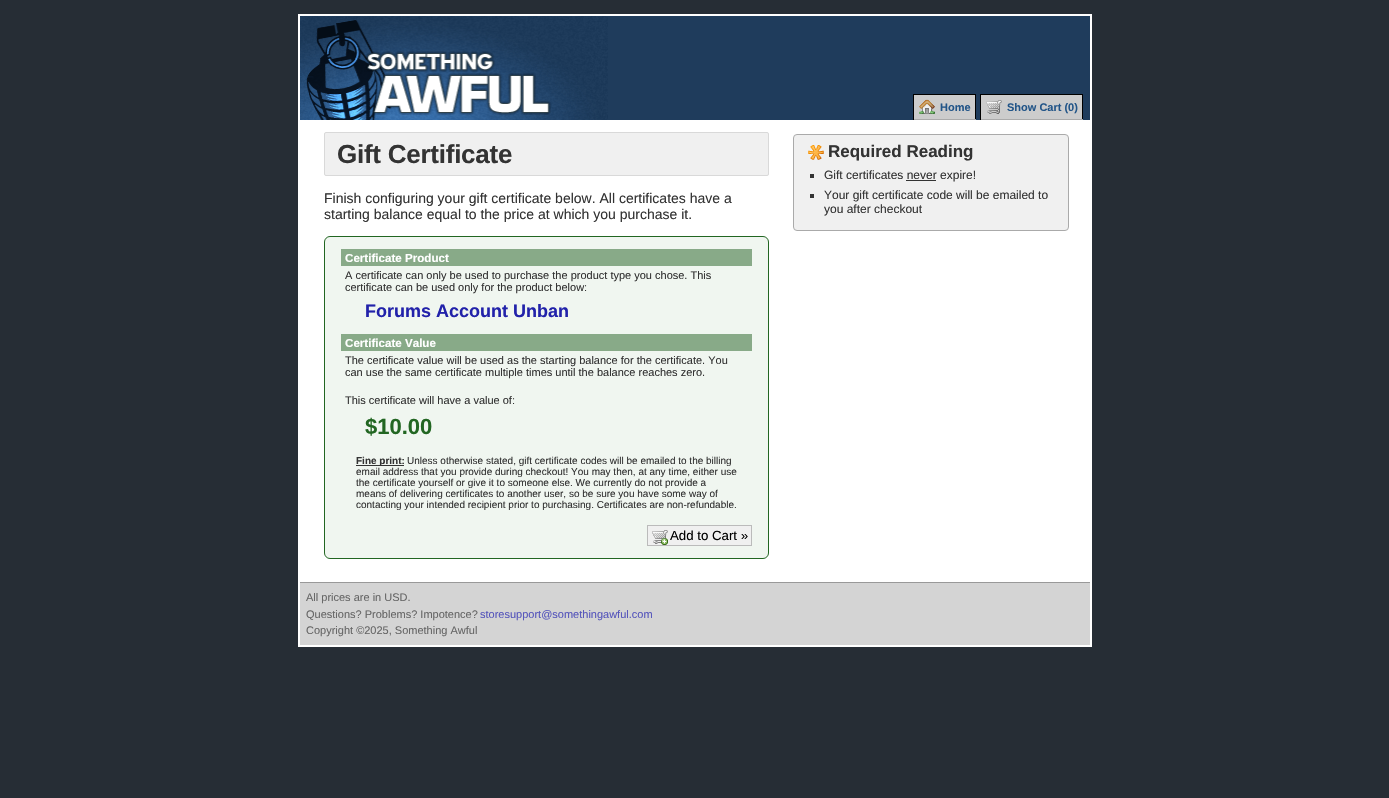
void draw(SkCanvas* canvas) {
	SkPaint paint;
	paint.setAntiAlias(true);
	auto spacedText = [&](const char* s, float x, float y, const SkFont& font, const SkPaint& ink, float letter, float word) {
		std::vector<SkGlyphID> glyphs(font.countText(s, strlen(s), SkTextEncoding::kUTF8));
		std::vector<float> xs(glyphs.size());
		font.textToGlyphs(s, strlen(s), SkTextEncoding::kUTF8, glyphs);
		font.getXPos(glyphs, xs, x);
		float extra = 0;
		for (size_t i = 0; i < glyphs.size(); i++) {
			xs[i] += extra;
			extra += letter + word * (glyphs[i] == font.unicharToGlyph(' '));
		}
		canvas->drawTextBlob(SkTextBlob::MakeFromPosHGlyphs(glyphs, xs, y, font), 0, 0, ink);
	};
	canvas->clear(0xff262d35);
	paint.setColor(0xffffffff);
	canvas->drawRect(SkRect::MakeXYWH(298, 14, 794, 633), paint);
	paint.setColor(0xff1f3c5c);
	canvas->drawRect(SkRect::MakeXYWH(608, 16, 482, 104), paint);
	canvas->drawImageRect(SkImages::DeferredFromEncodedData(SkData::MakeFromFileName("img1.png")), SkRect::MakeXYWH(300, 16, 308, 104), SkSamplingOptions());
	paint.setColor(0xffcccccc);
	canvas->drawRect(SkRect::MakeXYWH(914, 95, 61, 24), paint);
	canvas->drawImageRect(SkImages::DeferredFromEncodedData(SkData::MakeFromFileName("img2.png")), SkRect::MakeXYWH(919, 99, 16, 15), SkSamplingOptions());
	paint.setColor(0xff000000);
	canvas->drawRect(SkRect::MakeXYWH(913, 94, 63, 1), paint);
	canvas->drawRect(SkRect::MakeXYWH(975, 94, 1, 26), paint);
	paint.setColor(0xffaaaaaa);
	canvas->drawRect(SkRect::MakeXYWH(913, 119, 63, 1), paint);
	paint.setColor(0xff000000);
	canvas->drawRect(SkRect::MakeXYWH(913, 94, 1, 26), paint);
	SkFont f1(fontMgr->matchFamilyStyle("Liberation Sans", SkFontStyle::Bold()), 11);
	f1.setSubpixel(true);
	paint.setColor(0xff225588);
	canvas->drawString("Home", 940, 111, f1, paint);
	paint.setColor(0xffcccccc);
	canvas->drawRect(SkRect::MakeXYWH(981, 95, 101, 24), paint);
	canvas->drawImageRect(SkImages::DeferredFromEncodedData(SkData::MakeFromFileName("img3.png")), SkRect::MakeXYWH(986, 100, 16, 14), SkSamplingOptions());
	paint.setColor(0xff000000);
	canvas->drawRect(SkRect::MakeXYWH(980, 94, 103, 1), paint);
	canvas->drawRect(SkRect::MakeXYWH(1082, 94, 1, 26), paint);
	paint.setColor(0xffaaaaaa);
	canvas->drawRect(SkRect::MakeXYWH(980, 119, 103, 1), paint);
	paint.setColor(0xff000000);
	canvas->drawRect(SkRect::MakeXYWH(980, 94, 1, 26), paint);
	paint.setColor(0xff225588);
	canvas->drawString("Show Cart (0)", 1007, 111, f1, paint);
	paint.setColor(0xfff0f0f0);
	canvas->drawRoundRect(SkRect::MakeXYWH(324.5, 132.5, 444, 43), 1.5, 1.5, paint);
	paint.setStroke(true);
	paint.setStrokeWidth(1);
	paint.setColor(0xffd9d9d9);
	canvas->drawRoundRect(SkRect::MakeXYWH(324.5, 132.5, 444, 43), 1.5, 1.5, paint);
	SkFont f2(fontMgr->matchFamilyStyle("Liberation Sans", SkFontStyle::Bold()), 26);
	f2.setSubpixel(true);
	paint.setStroke(false);
	paint.setColor(0xff333333);
	spacedText("Gift Certificate", 337, 163, f2, paint, -0.25, 0);
	SkFont f3(fontMgr->matchFamilyStyle("Liberation Sans", SkFontStyle::Normal()), 14);
	f3.setSubpixel(true);
	canvas->drawString("Finish configuring your gift certificate below. All certificates have a", 324, 203, f3, paint);
	canvas->drawString("starting balance equal to the price at which you purchase it.", 324, 219, f3, paint);
	paint.setColor(0xfff0f6f0);
	canvas->drawRoundRect(SkRect::MakeXYWH(324.5, 236.5, 444, 322), 5.5, 5.5, paint);
	paint.setStroke(true);
	paint.setColor(0xff226622);
	canvas->drawRoundRect(SkRect::MakeXYWH(324.5, 236.5, 444, 322), 5.5, 5.5, paint);
	paint.setStroke(false);
	paint.setColor(0xff88aa88);
	canvas->drawRect(SkRect::MakeXYWH(341, 249, 411, 17), paint);
	SkFont f4(fontMgr->matchFamilyStyle("Liberation Sans", SkFontStyle::Bold()), 11.6);
	f4.setSubpixel(true);
	paint.setColor(0xffffffff);
	canvas->drawString("Certificate Product", 345, 262, f4, paint);
	SkFont f5(fontMgr->matchFamilyStyle("Liberation Sans", SkFontStyle::Normal()), 11);
	f5.setSubpixel(true);
	paint.setColor(0xff333333);
	canvas->drawString("A certificate can only be used to purchase the product type you chose. This", 345, 279, f5, paint);
	canvas->drawString("certificate can be used only for the product below:", 345, 291, f5, paint);
	SkFont f6(fontMgr->matchFamilyStyle("Liberation Sans", SkFontStyle::Bold()), 18);
	f6.setSubpixel(true);
	paint.setColor(0xff2222aa);
	canvas->drawString("Forums Account Unban", 365, 317, f6, paint);
	paint.setColor(0xff88aa88);
	canvas->drawRect(SkRect::MakeXYWH(341, 334, 411, 17), paint);
	paint.setColor(0xffffffff);
	canvas->drawString("Certificate Value", 345, 347, f4, paint);
	paint.setColor(0xff333333);
	canvas->drawString("The certificate value will be used as the starting balance for the certificate. You", 345, 364, f5, paint);
	canvas->drawString("can use the same certificate multiple times until the balance reaches zero.", 345, 376, f5, paint);
	canvas->drawString("This certificate will have a value of:", 345, 404, f5, paint);
	SkFont f7(fontMgr->matchFamilyStyle("Liberation Sans", SkFontStyle::Bold()), 22);
	f7.setSubpixel(true);
	paint.setColor(0xff226622);
	canvas->drawString("$10.00", 365, 434, f7, paint);
	paint.setColor(0xff333333);
	canvas->drawRect(SkRect::MakeXYWH(356, 465, 48, 1), paint);
	SkFont f8(fontMgr->matchFamilyStyle("Liberation Sans", SkFontStyle::Bold()), 10);
	f8.setSubpixel(true);
	canvas->drawString("Fine print:", 356, 464, f8, paint);
	SkFont f9(fontMgr->matchFamilyStyle("Liberation Sans", SkFontStyle::Normal()), 10);
	f9.setSubpixel(true);
	canvas->drawString("Unless otherwise stated, gift certificate codes will be emailed to the billing", 407, 464, f9, paint);
	canvas->drawString("email address that you provide during checkout! You may then, at any time, either use", 356, 475, f9, paint);
	canvas->drawString("the certificate yourself or give it to someone else. We currently do not provide a", 356, 486, f9, paint);
	canvas->drawString("means of delivering certificates to another user, so be sure you have some way of", 356, 497, f9, paint);
	canvas->drawString("contacting your intended recipient prior to purchasing. Certificates are non-refundable.", 356, 508, f9, paint);
	paint.setColor(0xfff0f0f0);
	canvas->drawRect(SkRect::MakeXYWH(648, 526, 103, 19), paint);
	canvas->drawImageRect(SkImages::DeferredFromEncodedData(SkData::MakeFromFileName("img4.png")), SkRect::MakeXYWH(652, 530, 16, 15), SkSamplingOptions());
	paint.setStroke(true);
	paint.setColor(0xffbbbbbb);
	canvas->drawRect(SkRect::MakeXYWH(647.5, 525.5, 104, 20), paint);
	SkFont f10(fontMgr->matchFamilyStyle("Liberation Sans", SkFontStyle::Normal()), 13.25);
	f10.setSubpixel(true);
	paint.setStroke(false);
	paint.setColor(0xff000000);
	canvas->drawString("Add to Cart »", 670, 540, f10, paint);
	paint.setColor(0xfff0f0f0);
	canvas->drawRoundRect(SkRect::MakeXYWH(793.5, 134.5, 275, 96), 3.5, 3.5, paint);
	paint.setStroke(true);
	paint.setColor(0xffaaaaaa);
	canvas->drawRoundRect(SkRect::MakeXYWH(793.5, 134.5, 275, 96), 3.5, 3.5, paint);
	canvas->drawImageRect(SkImages::DeferredFromEncodedData(SkData::MakeFromFileName("img5.png")), SkRect::MakeXYWH(808, 145, 16, 15), SkSamplingOptions());
	SkFont f11(fontMgr->matchFamilyStyle("Liberation Sans", SkFontStyle::Bold()), 17);
	f11.setSubpixel(true);
	paint.setStroke(false);
	paint.setColor(0xff333333);
	canvas->drawString("Required Reading", 828, 157, f11, paint);
	canvas->drawRect(SkRect::MakeXYWH(810, 174, 4, 4), paint);
	SkFont f12(fontMgr->matchFamilyStyle("Liberation Sans", SkFontStyle::Normal()), 12);
	f12.setSubpixel(true);
	canvas->drawString("Gift certificates never expire!", 824, 179, f12, paint);
	canvas->drawRect(SkRect::MakeXYWH(906, 180, 30, 1), paint);
	canvas->drawRect(SkRect::MakeXYWH(810, 194, 4, 4), paint);
	canvas->drawString("Your gift certificate code will be emailed to", 824, 199, f12, paint);
	canvas->drawString("you after checkout", 824, 213, f12, paint);
	paint.setColor(0xffd4d4d4);
	canvas->drawRect(SkRect::MakeXYWH(300, 583, 790, 62), paint);
	paint.setColor(0xff999999);
	canvas->drawRect(SkRect::MakeXYWH(300, 582, 790, 1), paint);
	paint.setColor(0xff666666);
	canvas->drawString("All prices are in USD.", 306, 601, f5, paint);
	canvas->drawString("Questions? Problems? Impotence?", 306, 618, f5, paint);
	paint.setColor(0xff5555bb);
	canvas->drawString("storesupport@somethingawful.com", 480, 618, f5, paint);
	paint.setColor(0xff666666);
	canvas->drawString("Copyright ©2025, Something Awful", 306, 634, f5, paint);
}
